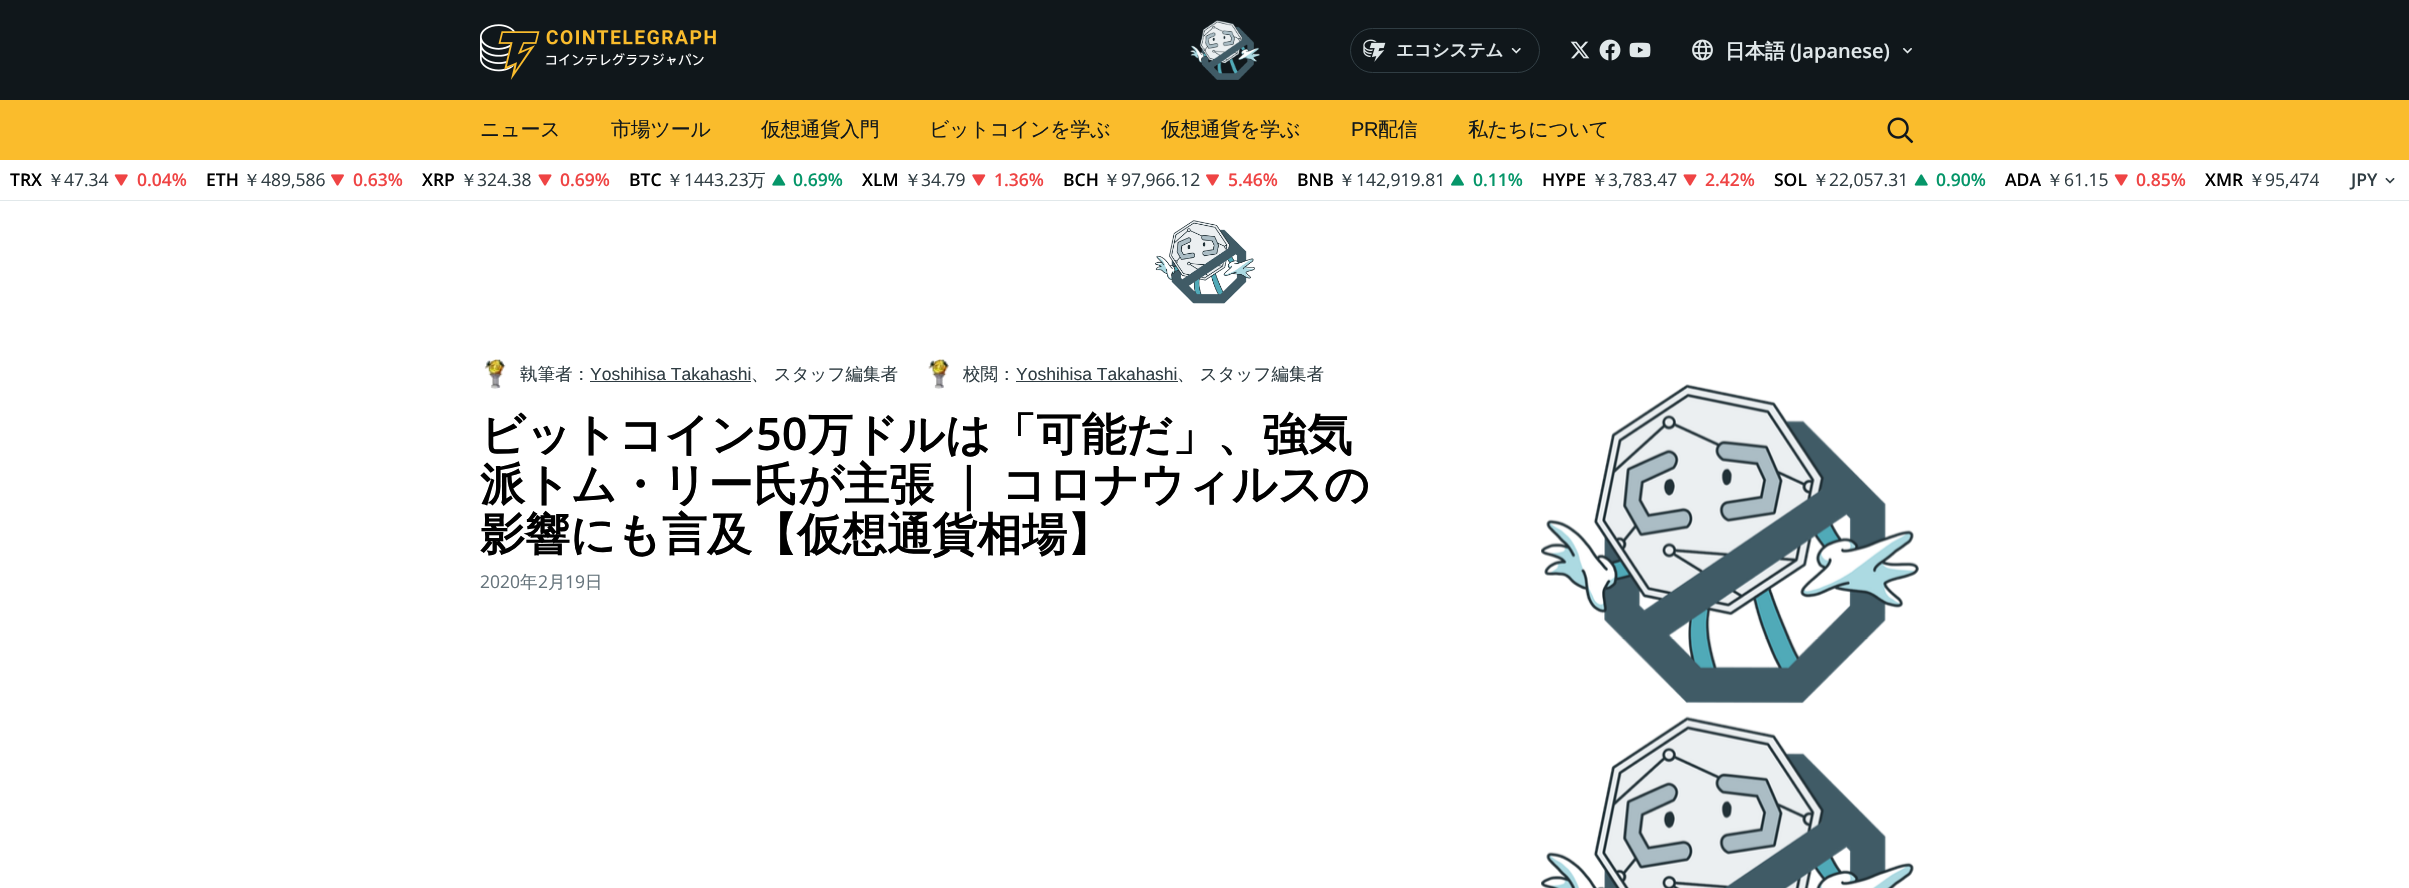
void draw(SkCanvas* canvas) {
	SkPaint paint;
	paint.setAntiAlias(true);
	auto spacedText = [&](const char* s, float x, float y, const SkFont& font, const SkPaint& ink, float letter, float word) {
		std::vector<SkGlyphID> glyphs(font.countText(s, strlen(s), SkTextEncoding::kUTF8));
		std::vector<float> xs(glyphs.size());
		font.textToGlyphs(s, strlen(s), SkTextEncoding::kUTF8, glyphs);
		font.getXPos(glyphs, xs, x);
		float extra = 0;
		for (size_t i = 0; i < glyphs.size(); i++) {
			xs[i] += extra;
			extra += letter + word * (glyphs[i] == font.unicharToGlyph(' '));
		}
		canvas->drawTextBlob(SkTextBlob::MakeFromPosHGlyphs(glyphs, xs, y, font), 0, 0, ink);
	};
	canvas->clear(0xffffffff);
	paint.setColor(0xff10171b);
	canvas->drawRect(SkRect::MakeXYWH(0, 0, 2409, 100), paint);
	canvas->drawImageRect(SkImages::DeferredFromEncodedData(SkData::MakeFromFileName("img1.png")), SkRect::MakeXYWH(480, 24, 236, 56), SkSamplingOptions());
	canvas->drawImageRect(SkImages::DeferredFromEncodedData(SkData::MakeFromFileName("img2.png")), SkRect::MakeXYWH(1190, 20, 70, 60), SkSamplingOptions());
	paint.setStroke(true);
	paint.setStrokeWidth(1);
	paint.setColor(0xff303d43);
	canvas->drawRoundRect(SkRect::MakeXYWH(1350.5, 28.5, 189, 44), 22, 22, paint);
	canvas->drawImageRect(SkImages::DeferredFromEncodedData(SkData::MakeFromFileName("img3.png")), SkRect::MakeXYWH(1363, 39, 23, 23), SkSamplingOptions());
	SkFont f1(fontMgr->matchFamilyStyle("WenQuanYi Zen Hei", SkFontStyle::Bold()), 17.5);
	f1.setSubpixel(true);
	paint.setStroke(false);
	paint.setColor(0xffe1e8ea);
	canvas->drawString("エコシステム", 1396, 56, f1, paint);
	canvas->drawImageRect(SkImages::DeferredFromEncodedData(SkData::MakeFromFileName("img4.png")), SkRect::MakeXYWH(1511, 48, 10, 6), SkSamplingOptions());
	canvas->drawImageRect(SkImages::DeferredFromEncodedData(SkData::MakeFromFileName("img5.png")), SkRect::MakeXYWH(1570, 41, 20, 18), SkSamplingOptions());
	canvas->drawImageRect(SkImages::DeferredFromEncodedData(SkData::MakeFromFileName("img6.png")), SkRect::MakeXYWH(1599, 39, 22, 22), SkSamplingOptions());
	canvas->drawImageRect(SkImages::DeferredFromEncodedData(SkData::MakeFromFileName("img7.png")), SkRect::MakeXYWH(1629, 42, 22, 16), SkSamplingOptions());
	canvas->drawImageRect(SkImages::DeferredFromEncodedData(SkData::MakeFromFileName("img8.png")), SkRect::MakeXYWH(1692, 39, 21, 22), SkSamplingOptions());
	SkFont f2(fontMgr->matchFamilyStyle("WenQuanYi Zen Hei", SkFontStyle::Bold()), 20);
	f2.setSubpixel(true);
	canvas->drawString("日本語", 1725, 58, f2, paint);
	SkFont f3(fontMgr->matchFamilyStyle("Open Sans", SkFontStyle(600, SkFontStyle::kNormal_Width, SkFontStyle::kUpright_Slant)), 20);
	f3.setSubpixel(true);
	canvas->drawString("(Japanese)", 1790, 58, f3, paint);
	canvas->drawImageRect(SkImages::DeferredFromEncodedData(SkData::MakeFromFileName("img9.png")), SkRect::MakeXYWH(1903, 48, 9, 6), SkSamplingOptions());
	paint.setColor(0xfffabc2c);
	canvas->drawRect(SkRect::MakeXYWH(0, 100, 2409, 60), paint);
	SkFont f4(fontMgr->matchFamilyStyle("WenQuanYi Zen Hei", SkFontStyle(500, SkFontStyle::kNormal_Width, SkFontStyle::kUpright_Slant)), 20);
	f4.setSubpixel(true);
	paint.setColor(0xff10171b);
	spacedText("ニュース", 480, 136, f4, paint, -0.25, 0);
	spacedText("市場ツール", 611, 136, f4, paint, -0.25, 0);
	spacedText("仮想通貨入門", 761, 136, f4, paint, -0.25, 0);
	spacedText("ビットコインを学ぶ", 929, 136, f4, paint, -0.25, 0);
	spacedText("仮想通貨を学ぶ", 1161, 136, f4, paint, -0.25, 0);
	SkFont f5(fontMgr->matchFamilyStyle("Liberation Sans", SkFontStyle::Normal()), 20);
	f5.setSubpixel(true);
	spacedText("PR", 1351, 136, f5, paint, -0.25, 0);
	spacedText("配信", 1378, 136, f4, paint, -0.25, 0);
	spacedText("私たちについて", 1468, 136, f4, paint, -0.25, 0);
	canvas->drawImageRect(SkImages::DeferredFromEncodedData(SkData::MakeFromFileName("img10.png")), SkRect::MakeXYWH(1887, 117, 27, 27), SkSamplingOptions());
	paint.setColor(0xffe1e8ea);
	canvas->drawRect(SkRect::MakeXYWH(0, 200, 2409, 1), paint);
	SkFont f6(fontMgr->matchFamilyStyle("Open Sans", SkFontStyle(600, SkFontStyle::kNormal_Width, SkFontStyle::kUpright_Slant)), 17.5);
	f6.setSubpixel(true);
	paint.setColor(0xff000000);
	canvas->drawString("TRX", 10, 186, f6, paint);
	SkFont f7(fontMgr->matchFamilyStyle("WenQuanYi Zen Hei", SkFontStyle(500, SkFontStyle::kNormal_Width, SkFontStyle::kUpright_Slant)), 17.5);
	f7.setSubpixel(true);
	paint.setColor(0xff303d43);
	canvas->drawString("￥", 47, 186, f7, paint);
	SkFont f8(fontMgr->matchFamilyStyle("Open Sans", SkFontStyle::Normal()), 17.5);
	f8.setSubpixel(true);
	canvas->drawString("47.34", 64, 186, f8, paint);
	canvas->drawImageRect(SkImages::DeferredFromEncodedData(SkData::MakeFromFileName("img11.png")), SkRect::MakeXYWH(114, 174, 14, 12), SkSamplingOptions());
	paint.setColor(0xffef4444);
	canvas->drawString("0.04%", 137, 186, f6, paint);
	paint.setColor(0xff000000);
	canvas->drawString("ETH", 206, 186, f6, paint);
	paint.setColor(0xff303d43);
	canvas->drawString("￥", 243, 186, f7, paint);
	canvas->drawString("489,586", 261, 186, f8, paint);
	canvas->drawImageRect(SkImages::DeferredFromEncodedData(SkData::MakeFromFileName("img12.png")), SkRect::MakeXYWH(331, 174, 13, 12), SkSamplingOptions());
	paint.setColor(0xffef4444);
	canvas->drawString("0.63%", 353, 186, f6, paint);
	paint.setColor(0xff000000);
	canvas->drawString("XRP", 422, 186, f6, paint);
	paint.setColor(0xff303d43);
	canvas->drawString("￥", 460, 186, f7, paint);
	canvas->drawString("324.38", 477, 186, f8, paint);
	canvas->drawImageRect(SkImages::DeferredFromEncodedData(SkData::MakeFromFileName("img13.png")), SkRect::MakeXYWH(538, 174, 14, 12), SkSamplingOptions());
	paint.setColor(0xffef4444);
	canvas->drawString("0.69%", 560, 186, f6, paint);
	paint.setColor(0xff000000);
	canvas->drawString("BTC", 629, 186, f6, paint);
	paint.setColor(0xff303d43);
	canvas->drawString("￥", 666, 186, f7, paint);
	canvas->drawString("1443.23", 684, 186, f8, paint);
	canvas->drawString("万", 748, 186, f7, paint);
	canvas->drawImageRect(SkImages::DeferredFromEncodedData(SkData::MakeFromFileName("img14.png")), SkRect::MakeXYWH(772, 174, 14, 12), SkSamplingOptions());
	paint.setColor(0xff059669);
	canvas->drawString("0.69%", 793, 186, f6, paint);
	paint.setColor(0xff000000);
	canvas->drawString("XLM", 862, 186, f6, paint);
	paint.setColor(0xff303d43);
	canvas->drawString("￥", 904, 186, f7, paint);
	canvas->drawString("34.79", 921, 186, f8, paint);
	canvas->drawImageRect(SkImages::DeferredFromEncodedData(SkData::MakeFromFileName("img15.png")), SkRect::MakeXYWH(972, 174, 14, 12), SkSamplingOptions());
	paint.setColor(0xffef4444);
	canvas->drawString("1.36%", 994, 186, f6, paint);
	paint.setColor(0xff000000);
	canvas->drawString("BCH", 1063, 186, f6, paint);
	paint.setColor(0xff303d43);
	canvas->drawString("￥", 1103, 186, f7, paint);
	canvas->drawString("97,966.12", 1121, 186, f8, paint);
	canvas->drawImageRect(SkImages::DeferredFromEncodedData(SkData::MakeFromFileName("img12.png")), SkRect::MakeXYWH(1206, 174, 13, 12), SkSamplingOptions());
	paint.setColor(0xffef4444);
	canvas->drawString("5.46%", 1228, 186, f6, paint);
	paint.setColor(0xff000000);
	canvas->drawString("BNB", 1297, 186, f6, paint);
	paint.setColor(0xff303d43);
	canvas->drawString("￥", 1338, 186, f7, paint);
	canvas->drawString("142,919.81", 1356, 186, f8, paint);
	canvas->drawImageRect(SkImages::DeferredFromEncodedData(SkData::MakeFromFileName("img16.png")), SkRect::MakeXYWH(1451, 174, 13, 12), SkSamplingOptions());
	paint.setColor(0xff059669);
	canvas->drawString("0.11%", 1473, 186, f6, paint);
	paint.setColor(0xff000000);
	canvas->drawString("HYPE", 1542, 186, f6, paint);
	paint.setColor(0xff303d43);
	canvas->drawString("￥", 1591, 186, f7, paint);
	canvas->drawString("3,783.47", 1608, 186, f8, paint);
	canvas->drawImageRect(SkImages::DeferredFromEncodedData(SkData::MakeFromFileName("img13.png")), SkRect::MakeXYWH(1683, 174, 14, 12), SkSamplingOptions());
	paint.setColor(0xffef4444);
	canvas->drawString("2.42%", 1705, 186, f6, paint);
	paint.setColor(0xff000000);
	canvas->drawString("SOL", 1774, 186, f6, paint);
	paint.setColor(0xff303d43);
	canvas->drawString("￥", 1812, 186, f7, paint);
	canvas->drawString("22,057.31", 1829, 186, f8, paint);
	canvas->drawImageRect(SkImages::DeferredFromEncodedData(SkData::MakeFromFileName("img17.png")), SkRect::MakeXYWH(1914, 174, 14, 12), SkSamplingOptions());
	paint.setColor(0xff059669);
	canvas->drawString("0.90%", 1936, 186, f6, paint);
	paint.setColor(0xff000000);
	canvas->drawString("ADA", 2005, 186, f6, paint);
	paint.setColor(0xff303d43);
	canvas->drawString("￥", 2046, 186, f7, paint);
	canvas->drawString("61.15", 2064, 186, f8, paint);
	canvas->drawImageRect(SkImages::DeferredFromEncodedData(SkData::MakeFromFileName("img11.png")), SkRect::MakeXYWH(2114, 174, 14, 12), SkSamplingOptions());
	paint.setColor(0xffef4444);
	canvas->drawString("0.85%", 2136, 186, f6, paint);
	paint.setColor(0xff000000);
	canvas->drawString("XMR", 2205, 186, f6, paint);
	paint.setColor(0xff303d43);
	canvas->drawString("￥", 2248, 186, f7, paint);
	canvas->save();
	canvas->clipRect(SkRect::MakeXYWH(0, 160, 2319, 40));
	canvas->drawString("95,474", 2265, 186, f8, paint);
	canvas->restore();
	canvas->drawString("JPY", 2351, 186, f6, paint);
	canvas->drawImageRect(SkImages::DeferredFromEncodedData(SkData::MakeFromFileName("img18.png")), SkRect::MakeXYWH(2385, 178, 10, 6), SkSamplingOptions());
	canvas->drawImageRect(SkImages::DeferredFromEncodedData(SkData::MakeFromFileName("img19.png")), SkRect::MakeXYWH(1155, 220, 100, 84), SkSamplingOptions());
	canvas->drawImageRect(SkImages::DeferredFromEncodedData(SkData::MakeFromFileName("img20.png")), SkRect::MakeXYWH(484, 359, 22, 30), SkSamplingOptions());
	canvas->drawString("執筆者：", 520, 380, f7, paint);
	SkFont f9(fontMgr->matchFamilyStyle("Liberation Sans", SkFontStyle::Normal()), 17.5);
	f9.setSubpixel(true);
	canvas->drawString("Yoshihisa Takahashi", 590, 380, f9, paint);
	canvas->drawRect(SkRect::MakeXYWH(590, 381, 161, 1), paint);
	canvas->drawString("、 スタッフ編集者", 751, 380, f7, paint);
	canvas->drawImageRect(SkImages::DeferredFromEncodedData(SkData::MakeFromFileName("img21.png")), SkRect::MakeXYWH(928, 359, 21, 30), SkSamplingOptions());
	canvas->drawString("校閲：", 963, 380, f7, paint);
	canvas->drawString("Yoshihisa Takahashi", 1016, 380, f9, paint);
	canvas->drawRect(SkRect::MakeXYWH(1016, 381, 162, 1), paint);
	canvas->drawString("、 スタッフ編集者", 1177, 380, f7, paint);
	SkFont f10(fontMgr->matchFamilyStyle("WenQuanYi Zen Hei", SkFontStyle::Bold()), 45);
	f10.setSubpixel(true);
	paint.setColor(0xff000000);
	canvas->drawString("ビットコイン", 480, 450, f10, paint);
	SkFont f11(fontMgr->matchFamilyStyle("Open Sans", SkFontStyle(600, SkFontStyle::kNormal_Width, SkFontStyle::kUpright_Slant)), 45);
	f11.setSubpixel(true);
	canvas->drawString("50", 756, 450, f11, paint);
	canvas->drawString("万ドルは「可能だ」、強気", 808, 450, f10, paint);
	spacedText("派トム・リー氏が主張 ｜ コロナウィルスの", 480, 500, f10, paint, 0, -2);
	canvas->drawString("影響にも言及【仮想通貨相場】", 480, 550, f10, paint);
	paint.setColor(0xff66747c);
	canvas->drawString("2020", 480, 588, f8, paint);
	canvas->drawString("年", 520, 588, f7, paint);
	canvas->drawString("2", 538, 588, f8, paint);
	canvas->drawString("月", 548, 588, f7, paint);
	canvas->drawString("19", 565, 588, f8, paint);
	canvas->drawString("日", 585, 588, f7, paint);
	canvas->drawImageRect(SkImages::DeferredFromEncodedData(SkData::MakeFromFileName("img22.png")), SkRect::MakeXYWH(1541, 384, 378, 320), SkSamplingOptions());
	canvas->drawImageRect(SkImages::DeferredFromEncodedData(SkData::MakeFromFileName("img23.png")), SkRect::MakeXYWH(1541, 716, 373, 172), SkSamplingOptions());
}
